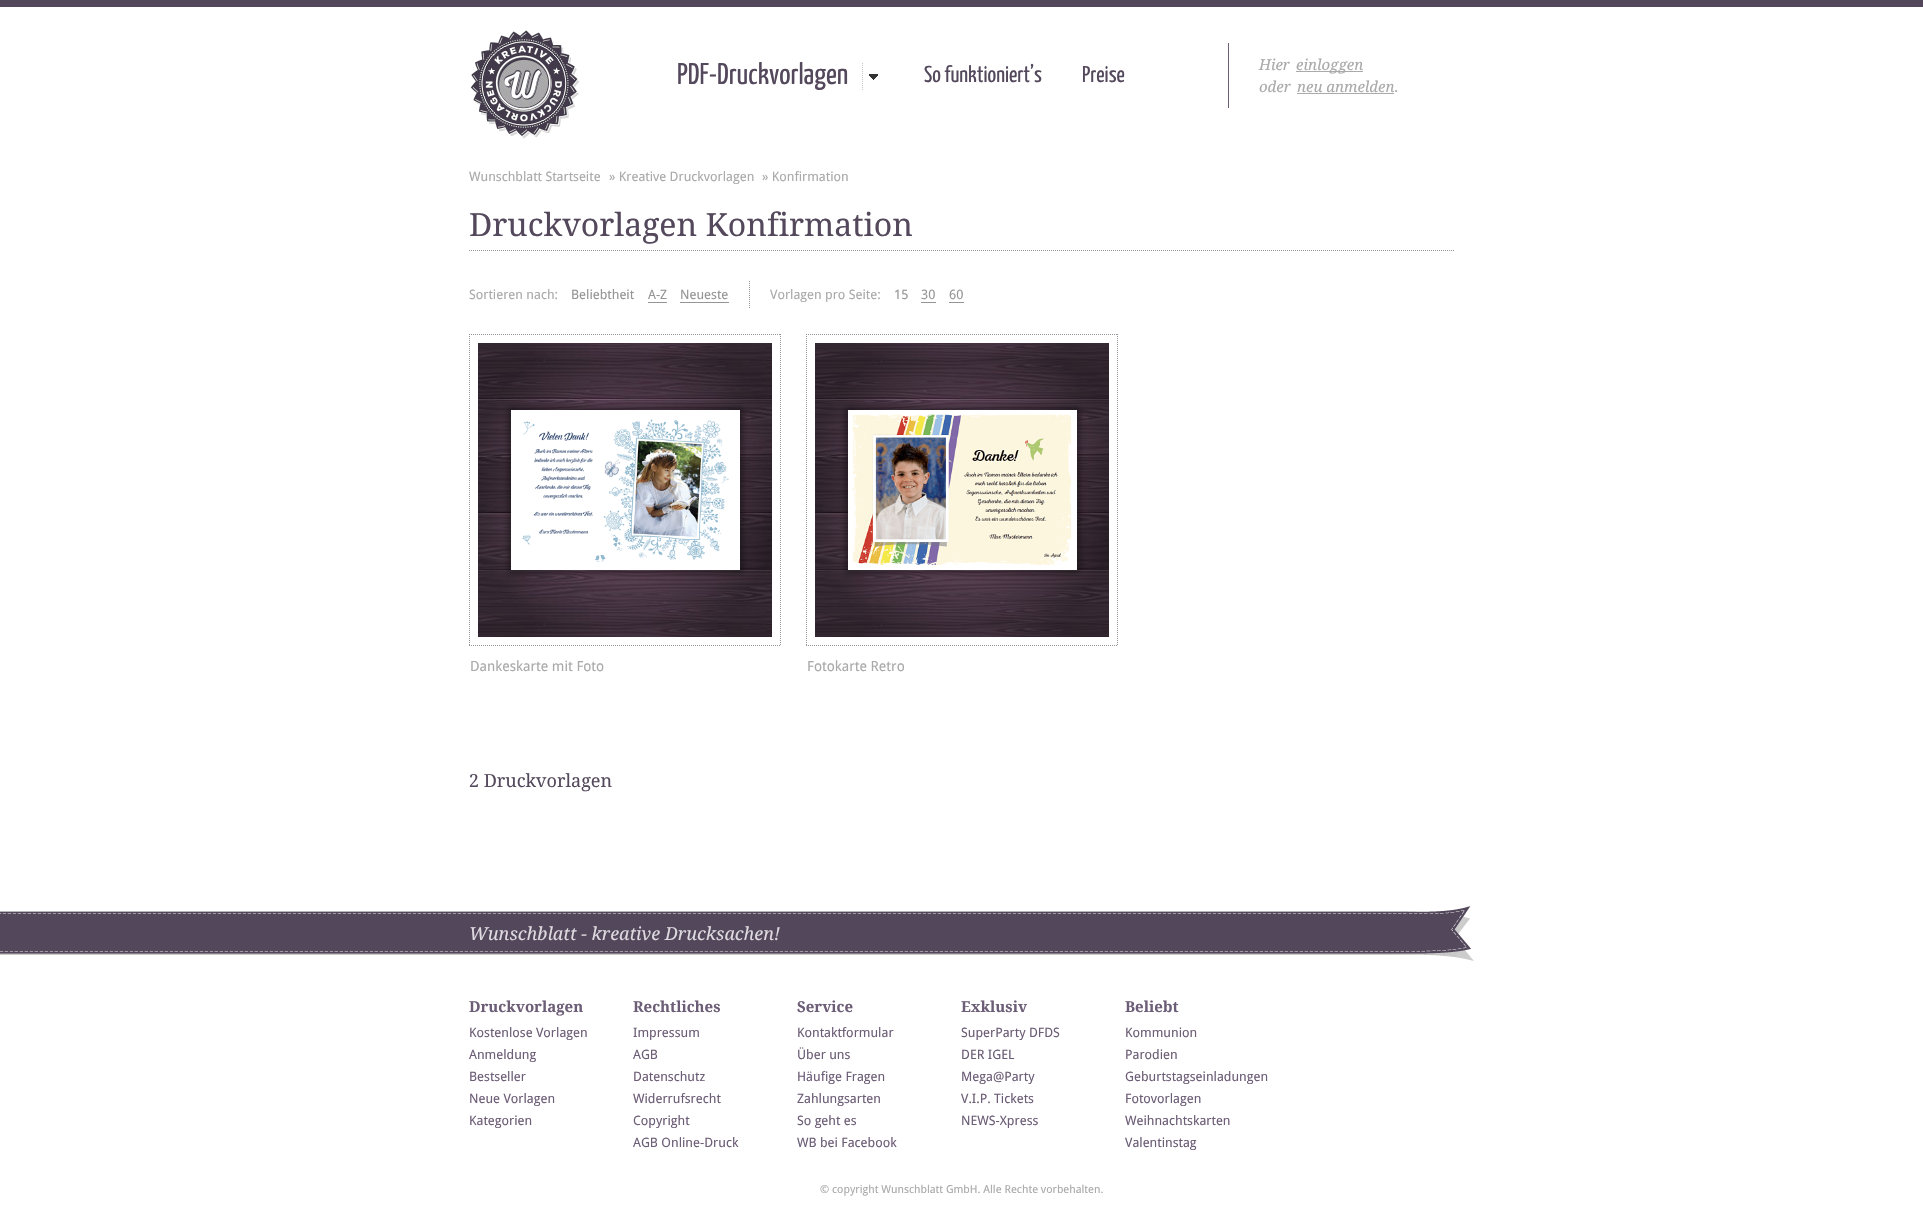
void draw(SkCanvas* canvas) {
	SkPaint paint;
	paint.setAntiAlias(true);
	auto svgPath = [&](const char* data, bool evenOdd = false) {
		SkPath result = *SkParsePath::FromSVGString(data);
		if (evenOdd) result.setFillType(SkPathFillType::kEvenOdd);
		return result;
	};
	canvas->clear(0xffffffff);
	paint.setColor(0xff53475b);
	canvas->drawRect(SkRect::MakeXYWH(0, 0, 1923, 7), paint);
	canvas->drawImageRect(SkImages::DeferredFromEncodedData(SkData::MakeFromFileName("img1.png")), SkRect::MakeXYWH(470, 30, 109, 109), SkSamplingOptions());
	canvas->drawImageRect(SkImages::DeferredFromEncodedData(SkData::MakeFromFileName("img2.png")), SkRect::MakeXYWH(862, 63, 16, 27), SkSamplingOptions());
	SkFont f1(fontMgr->matchFamilyStyle("Yanone Kaffeesatz", SkFontStyle::Normal()), 30);
	f1.setSubpixel(true);
	paint.setColor(0xff54495c);
	canvas->drawString("PDF-Druckvorlagen", 677, 84, f1, paint);
	SkFont f2(fontMgr->matchFamilyStyle("Yanone Kaffeesatz", SkFontStyle::Normal()), 23);
	f2.setSubpixel(true);
	canvas->drawString("So funktioniert’s", 924, 82, f2, paint);
	canvas->drawString("Preise", 1082, 82, f2, paint);
	paint.setColor(0xff6d5e77);
	canvas->drawRect(SkRect::MakeXYWH(1228, 43, 1, 65), paint);
	SkFont f3(fontMgr->matchFamilyStyle("Droid Serif", SkFontStyle::Italic()), 15);
	f3.setSubpixel(true);
	paint.setColor(0xffaaaaaa);
	canvas->drawString("Hier", 1259, 70, f3, paint);
	canvas->drawRect(SkRect::MakeXYWH(1296, 71, 67, 1), paint);
	canvas->drawString("einloggen", 1296, 70, f3, paint);
	canvas->drawString("oder", 1259, 92, f3, paint);
	canvas->drawString("neu anmelden.", 1297, 92, f3, paint);
	canvas->drawRect(SkRect::MakeXYWH(1297, 93, 97, 1), paint);
	SkFont f4(fontMgr->matchFamilyStyle("Droid Sans", SkFontStyle::Normal()), 13);
	f4.setSubpixel(true);
	canvas->drawString("Wunschblatt Startseite", 469, 181, f4, paint);
	canvas->drawString("» Kreative Druckvorlagen", 609, 181, f4, paint);
	canvas->drawString("» Konfirmation", 762, 181, f4, paint);
	paint.setStroke(true);
	paint.setStrokeWidth(1);
	paint.setColor(0xff959595);
	paint.setPathEffect(SkDashPathEffect::Make({{1, 1}}, 0));
	canvas->drawPath(svgPath("M469 250.5H1454"), paint);
	paint.setPathEffect(nullptr);
	SkFont f5(fontMgr->matchFamilyStyle("Droid Serif", SkFontStyle::Normal()), 32);
	f5.setSubpixel(true);
	paint.setStroke(false);
	paint.setColor(0xff54495c);
	canvas->drawString("Druckvorlagen Konfirmation", 469, 236, f5, paint);
	paint.setColor(0xffaaaaaa);
	canvas->drawString("Sortieren nach:", 469, 299, f4, paint);
	paint.setColor(0xff959595);
	canvas->drawString("Beliebtheit", 571, 299, f4, paint);
	canvas->drawString("A-Z", 648, 299, f4, paint);
	canvas->drawRect(SkRect::MakeXYWH(648, 302, 19, 1), paint);
	canvas->drawString("Neueste", 680, 299, f4, paint);
	canvas->drawRect(SkRect::MakeXYWH(680, 302, 49, 1), paint);
	paint.setStroke(true);
	paint.setPathEffect(SkDashPathEffect::Make({{1, 1}}, 0));
	canvas->drawPath(svgPath("M749.5 281V309"), paint);
	paint.setPathEffect(nullptr);
	paint.setStroke(false);
	paint.setColor(0xffaaaaaa);
	canvas->drawString("Vorlagen pro Seite:", 770, 299, f4, paint);
	paint.setColor(0xff959595);
	canvas->drawString("15", 894, 299, f4, paint);
	canvas->drawString("30", 921, 299, f4, paint);
	canvas->drawRect(SkRect::MakeXYWH(921, 302, 15, 1), paint);
	canvas->drawString("60", 949, 299, f4, paint);
	canvas->drawRect(SkRect::MakeXYWH(949, 302, 15, 1), paint);
	paint.setStroke(true);
	paint.setPathEffect(SkDashPathEffect::Make({{1, 1}}, 0));
	canvas->drawPath(svgPath("M469 334.5H781"), paint);
	paint.setPathEffect(nullptr);
	paint.setPathEffect(SkDashPathEffect::Make({{1, 1}}, 0));
	canvas->drawPath(svgPath("M780.5 334V646"), paint);
	paint.setPathEffect(nullptr);
	paint.setPathEffect(SkDashPathEffect::Make({{1, 1}}, 0));
	canvas->drawPath(svgPath("M469 645.5H781"), paint);
	paint.setPathEffect(nullptr);
	paint.setPathEffect(SkDashPathEffect::Make({{1, 1}}, 0));
	canvas->drawPath(svgPath("M469.5 334V646"), paint);
	paint.setPathEffect(nullptr);
	canvas->drawImageRect(SkImages::DeferredFromEncodedData(SkData::MakeFromFileName("img3.png")), SkRect::MakeXYWH(478, 343, 294, 294), SkSamplingOptions());
	paint.setStroke(false);
	paint.setColor(0x66000000);
	paint.setMaskFilter(SkMaskFilter::MakeBlur(kNormal_SkBlurStyle, 3));
	canvas->drawRect(SkRect::MakeXYWH(508, 407, 235, 166), paint);
	paint.setMaskFilter(nullptr);
	canvas->drawImageRect(SkImages::DeferredFromEncodedData(SkData::MakeFromFileName("img4.png")), SkRect::MakeXYWH(511, 410, 229, 160), SkSamplingOptions());
	SkFont f6(fontMgr->matchFamilyStyle("Droid Sans", SkFontStyle::Normal()), 14);
	f6.setSubpixel(true);
	paint.setColor(0xffaaaaaa);
	canvas->drawString("Dankeskarte mit Foto", 470, 671, f6, paint);
	paint.setStroke(true);
	paint.setColor(0xff959595);
	paint.setPathEffect(SkDashPathEffect::Make({{1, 1}}, 0));
	canvas->drawPath(svgPath("M806 334.5H1118"), paint);
	paint.setPathEffect(nullptr);
	paint.setPathEffect(SkDashPathEffect::Make({{1, 1}}, 0));
	canvas->drawPath(svgPath("M1117.5 334V646"), paint);
	paint.setPathEffect(nullptr);
	paint.setPathEffect(SkDashPathEffect::Make({{1, 1}}, 0));
	canvas->drawPath(svgPath("M806 645.5H1118"), paint);
	paint.setPathEffect(nullptr);
	paint.setPathEffect(SkDashPathEffect::Make({{1, 1}}, 0));
	canvas->drawPath(svgPath("M806.5 334V646"), paint);
	paint.setPathEffect(nullptr);
	canvas->drawImageRect(SkImages::DeferredFromEncodedData(SkData::MakeFromFileName("img3.png")), SkRect::MakeXYWH(815, 343, 294, 294), SkSamplingOptions());
	paint.setStroke(false);
	paint.setColor(0x66000000);
	paint.setMaskFilter(SkMaskFilter::MakeBlur(kNormal_SkBlurStyle, 3));
	canvas->drawRect(SkRect::MakeXYWH(845, 407, 235, 166), paint);
	paint.setMaskFilter(nullptr);
	canvas->drawImageRect(SkImages::DeferredFromEncodedData(SkData::MakeFromFileName("img5.png")), SkRect::MakeXYWH(848, 410, 229, 160), SkSamplingOptions());
	paint.setColor(0xffaaaaaa);
	canvas->drawString("Fotokarte Retro", 807, 671, f6, paint);
	SkFont f7(fontMgr->matchFamilyStyle("Droid Serif", SkFontStyle::Normal()), 18);
	f7.setSubpixel(true);
	paint.setColor(0xff54495c);
	canvas->drawString("2 Druckvorlagen", 469, 787, f7, paint);
	canvas->drawImageRect(SkImages::DeferredFromEncodedData(SkData::MakeFromFileName("img6.png")), SkRect::MakeXYWH(0, 911, 1384, 44), SkSamplingOptions());
	canvas->drawImageRect(SkImages::DeferredFromEncodedData(SkData::MakeFromFileName("img7.png")), SkRect::MakeXYWH(1384, 906, 90, 55), SkSamplingOptions());
	SkFont f8(fontMgr->matchFamilyStyle("Droid Serif", SkFontStyle::Italic()), 18);
	f8.setSubpixel(true);
	paint.setColor(0xffdedae0);
	canvas->drawString("Wunschblatt - kreative Drucksachen!", 469, 940, f8, paint);
	SkFont f9(fontMgr->matchFamilyStyle("Droid Serif", SkFontStyle::Bold()), 15);
	f9.setSubpixel(true);
	paint.setColor(0xff6d5e77);
	canvas->drawString("Druckvorlagen", 469, 1012, f9, paint);
	canvas->drawString("Kostenlose Vorlagen", 469, 1037, f4, paint);
	canvas->drawString("Anmeldung", 469, 1059, f4, paint);
	canvas->drawString("Bestseller", 469, 1081, f4, paint);
	canvas->drawString("Neue Vorlagen", 469, 1103, f4, paint);
	canvas->drawString("Kategorien", 469, 1125, f4, paint);
	canvas->drawString("Rechtliches", 633, 1012, f9, paint);
	canvas->drawString("Impressum", 633, 1037, f4, paint);
	canvas->drawString("AGB", 633, 1059, f4, paint);
	canvas->drawString("Datenschutz", 633, 1081, f4, paint);
	canvas->drawString("Widerrufsrecht", 633, 1103, f4, paint);
	canvas->drawString("Copyright", 633, 1125, f4, paint);
	canvas->drawString("AGB Online-Druck", 633, 1147, f4, paint);
	canvas->drawString("Service", 797, 1012, f9, paint);
	canvas->drawString("Kontaktformular", 797, 1037, f4, paint);
	canvas->drawString("Über uns", 797, 1059, f4, paint);
	canvas->drawString("Häufige Fragen", 797, 1081, f4, paint);
	canvas->drawString("Zahlungsarten", 797, 1103, f4, paint);
	canvas->drawString("So geht es", 797, 1125, f4, paint);
	canvas->drawString("WB bei Facebook", 797, 1147, f4, paint);
	canvas->drawString("Exklusiv", 961, 1012, f9, paint);
	canvas->drawString("SuperParty DFDS", 961, 1037, f4, paint);
	canvas->drawString("DER IGEL", 961, 1059, f4, paint);
	canvas->drawString("Mega@Party", 961, 1081, f4, paint);
	canvas->drawString("V.I.P. Tickets", 961, 1103, f4, paint);
	canvas->drawString("NEWS-Xpress", 961, 1125, f4, paint);
	canvas->drawString("Beliebt", 1125, 1012, f9, paint);
	canvas->drawString("Kommunion", 1125, 1037, f4, paint);
	canvas->drawString("Parodien", 1125, 1059, f4, paint);
	canvas->drawString("Geburtstagseinladungen", 1125, 1081, f4, paint);
	canvas->drawString("Fotovorlagen", 1125, 1103, f4, paint);
	canvas->drawString("Weihnachtskarten", 1125, 1125, f4, paint);
	canvas->drawString("Valentinstag", 1125, 1147, f4, paint);
	SkFont f10(fontMgr->matchFamilyStyle("Droid Sans", SkFontStyle::Normal()), 11);
	f10.setSubpixel(true);
	paint.setColor(0xffaaaaaa);
	canvas->drawString("© copyright Wunschblatt GmbH. Alle Rechte vorbehalten.", 820, 1193, f10, paint);
}
